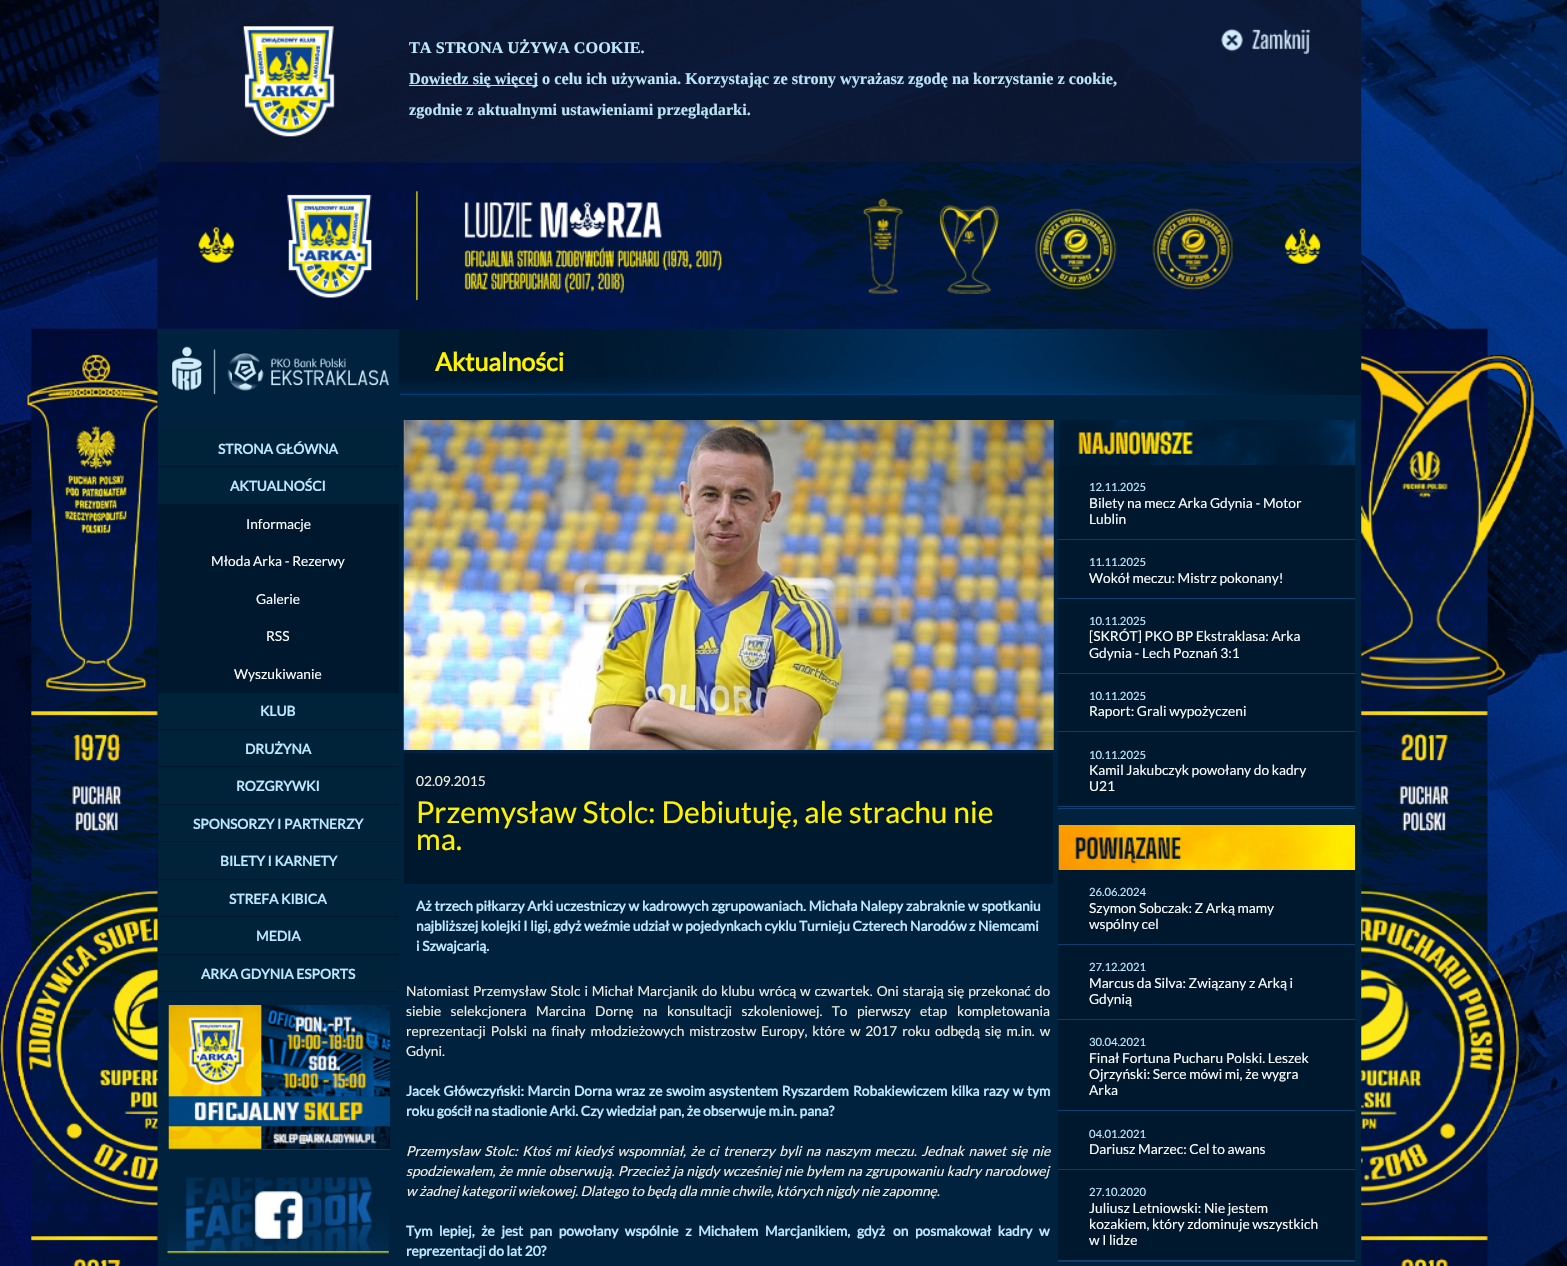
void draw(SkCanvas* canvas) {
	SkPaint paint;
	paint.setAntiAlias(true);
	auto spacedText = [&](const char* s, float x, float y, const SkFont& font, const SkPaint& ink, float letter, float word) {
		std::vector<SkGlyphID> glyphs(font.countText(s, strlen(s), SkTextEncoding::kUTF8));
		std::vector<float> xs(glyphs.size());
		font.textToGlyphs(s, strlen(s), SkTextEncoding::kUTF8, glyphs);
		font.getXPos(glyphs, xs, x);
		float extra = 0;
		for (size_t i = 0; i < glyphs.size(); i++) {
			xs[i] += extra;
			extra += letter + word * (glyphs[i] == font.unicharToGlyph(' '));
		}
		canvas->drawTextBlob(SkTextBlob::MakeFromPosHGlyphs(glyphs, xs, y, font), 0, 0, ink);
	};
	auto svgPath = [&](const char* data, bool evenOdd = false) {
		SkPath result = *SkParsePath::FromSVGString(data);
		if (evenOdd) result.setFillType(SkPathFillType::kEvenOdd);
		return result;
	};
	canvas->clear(0xffffffff);
	canvas->drawImageRect(SkImages::DeferredFromEncodedData(SkData::MakeFromFileName("img1.png")), SkRect::MakeXYWH(0, 0, 1567, 1266), SkSamplingOptions());
	canvas->drawImageRect(SkImages::DeferredFromEncodedData(SkData::MakeFromFileName("img2.png")), SkRect::MakeXYWH(158, 0, 1204, 163), SkSamplingOptions());
	SkFont f1(fontMgr->matchFamilyStyle("Liberation Serif", SkFontStyle::Bold()), 16.25);
	f1.setSubpixel(true);
	paint.setColor(0xffbee9f9);
	canvas->drawString("TA STRONA UŻYWA COOKIE.", 409, 53, f1, paint);
	paint.setColor(0xffb9e4f3);
	canvas->drawRect(SkRect::MakeXYWH(409, 85, 129, 1), paint);
	canvas->drawString("Dowiedz się więcej o celu ich używania. Korzystając ze strony wyrażasz zgodę na korzystanie z cookie,", 409, 84, f1, paint);
	canvas->drawString("zgodnie z aktualnymi ustawieniami przeglądarki.", 409, 115, f1, paint);
	canvas->drawImageRect(SkImages::DeferredFromEncodedData(SkData::MakeFromFileName("img3.png")), SkRect::MakeXYWH(1221, 28, 90, 26), SkSamplingOptions());
	canvas->drawImageRect(SkImages::DeferredFromEncodedData(SkData::MakeFromFileName("img4.png")), SkRect::MakeXYWH(157, 162, 1205, 167), SkSamplingOptions());
	paint.setColor(0xff00223e);
	canvas->drawRect(SkRect::MakeXYWH(158, 329, 1203, 937), paint);
	canvas->drawImageRect(SkImages::DeferredFromEncodedData(SkData::MakeFromFileName("img5.png")), SkRect::MakeXYWH(27, 328, 131, 526), SkSamplingOptions());
	canvas->drawImageRect(SkImages::DeferredFromEncodedData(SkData::MakeFromFileName("img6.png")), SkRect::MakeXYWH(0, 853, 158, 413), SkSamplingOptions());
	canvas->drawImageRect(SkImages::DeferredFromEncodedData(SkData::MakeFromFileName("img7.png")), SkRect::MakeXYWH(172, 346, 218, 49), SkSamplingOptions());
	paint.setColor(0xff00233a);
	canvas->drawPath(svgPath("M163 430H394C397 430 399 432 399 435V468H158V435C158 432 160 430 163 430Z"), paint);
	canvas->save();
	canvas->clipPath(svgPath("M163 430H394C397 430 399 432 399 435V988C399 991 397 993 394 993H163C160 993 158 991 158 988V435C158 432 160 430 163 430Z"), true);
	paint.setColor(0xff001f34);
	canvas->drawRect(SkRect::MakeXYWH(158, 430, 241, 1), paint);
	canvas->restore();
	paint.setColor(0xff00182e);
	canvas->drawRect(SkRect::MakeXYWH(158, 466, 241, 1), paint);
	SkFont f2(fontMgr->matchFamilyStyle("Lato", SkFontStyle::Bold()), 13.75);
	f2.setSubpixel(true);
	paint.setColor(0xffbde9ff);
	canvas->drawString("STRONA GŁÓWNA", 218, 454, f2, paint);
	paint.setColor(0xff00233a);
	canvas->drawRect(SkRect::MakeXYWH(158, 469, 241, 35), paint);
	paint.setColor(0xff002034);
	canvas->drawRect(SkRect::MakeXYWH(158, 468, 241, 1), paint);
	paint.setColor(0xff00182e);
	canvas->drawRect(SkRect::MakeXYWH(158, 504, 241, 75), paint);
	paint.setColor(0xffbde9ff);
	canvas->drawString("AKTUALNOŚCI", 230, 491, f2, paint);
	SkFont f3(fontMgr->matchFamilyStyle("Lato", SkFontStyle::Normal()), 13.75);
	f3.setSubpixel(true);
	paint.setColor(0xffffffff);
	canvas->drawString("Informacje", 246, 529, f3, paint);
	paint.setColor(0xff00172c);
	canvas->drawRect(SkRect::MakeXYWH(158, 579, 241, 1), paint);
	paint.setColor(0xffffffff);
	canvas->drawString("Młoda Arka - Rezerwy", 211, 566, f3, paint);
	paint.setColor(0xff00182e);
	canvas->drawRect(SkRect::MakeXYWH(158, 580, 241, 74), paint);
	paint.setColor(0xffffffff);
	canvas->drawString("Galerie", 256, 604, f3, paint);
	paint.setColor(0xff00172c);
	canvas->drawRect(SkRect::MakeXYWH(158, 654, 241, 1), paint);
	paint.setColor(0xffffffff);
	canvas->drawString("RSS", 266, 641, f3, paint);
	paint.setColor(0xff00182e);
	canvas->drawRect(SkRect::MakeXYWH(158, 655, 241, 38), paint);
	paint.setColor(0xffffffff);
	canvas->drawString("Wyszukiwanie", 234, 679, f3, paint);
	paint.setColor(0xff00233a);
	canvas->drawRect(SkRect::MakeXYWH(158, 694, 241, 35), paint);
	paint.setColor(0xff002034);
	canvas->drawRect(SkRect::MakeXYWH(158, 693, 241, 1), paint);
	paint.setColor(0xff00182e);
	canvas->drawRect(SkRect::MakeXYWH(158, 729, 241, 1), paint);
	paint.setColor(0xffbde9ff);
	canvas->drawString("KLUB", 260, 716, f2, paint);
	paint.setColor(0xff00233a);
	canvas->drawRect(SkRect::MakeXYWH(158, 731, 241, 37), paint);
	paint.setColor(0xff002034);
	canvas->drawRect(SkRect::MakeXYWH(158, 730, 241, 1), paint);
	paint.setColor(0xff00182e);
	canvas->drawRect(SkRect::MakeXYWH(158, 766, 241, 1), paint);
	paint.setColor(0xffbde9ff);
	canvas->drawString("DRUŻYNA", 245, 754, f2, paint);
	paint.setColor(0xff00233a);
	canvas->drawRect(SkRect::MakeXYWH(158, 769, 241, 35), paint);
	paint.setColor(0xff002034);
	canvas->drawRect(SkRect::MakeXYWH(158, 768, 241, 1), paint);
	paint.setColor(0xff00182e);
	canvas->drawRect(SkRect::MakeXYWH(158, 804, 241, 1), paint);
	paint.setColor(0xffbde9ff);
	canvas->drawString("ROZGRYWKI", 236, 791, f2, paint);
	paint.setColor(0xff00233a);
	canvas->drawRect(SkRect::MakeXYWH(158, 806, 241, 37), paint);
	paint.setColor(0xff002034);
	canvas->drawRect(SkRect::MakeXYWH(158, 805, 241, 1), paint);
	paint.setColor(0xff00182e);
	canvas->drawRect(SkRect::MakeXYWH(158, 841, 241, 1), paint);
	paint.setColor(0xffbde9ff);
	canvas->drawString("SPONSORZY I PARTNERZY", 193, 829, f2, paint);
	paint.setColor(0xff00233a);
	canvas->drawRect(SkRect::MakeXYWH(158, 844, 241, 35), paint);
	paint.setColor(0xff002034);
	canvas->drawRect(SkRect::MakeXYWH(158, 843, 241, 1), paint);
	paint.setColor(0xff00182e);
	canvas->drawRect(SkRect::MakeXYWH(158, 879, 241, 1), paint);
	paint.setColor(0xffbde9ff);
	canvas->drawString("BILETY I KARNETY", 220, 866, f2, paint);
	paint.setColor(0xff00233a);
	canvas->drawRect(SkRect::MakeXYWH(158, 881, 241, 37), paint);
	paint.setColor(0xff002034);
	canvas->drawRect(SkRect::MakeXYWH(158, 880, 241, 1), paint);
	paint.setColor(0xff00182e);
	canvas->drawRect(SkRect::MakeXYWH(158, 916, 241, 1), paint);
	paint.setColor(0xffbde9ff);
	canvas->drawString("STREFA KIBICA", 229, 904, f2, paint);
	paint.setColor(0xff00233a);
	canvas->drawRect(SkRect::MakeXYWH(158, 919, 241, 35), paint);
	paint.setColor(0xff002034);
	canvas->drawRect(SkRect::MakeXYWH(158, 918, 241, 1), paint);
	paint.setColor(0xff00182e);
	canvas->drawRect(SkRect::MakeXYWH(158, 954, 241, 1), paint);
	paint.setColor(0xffbde9ff);
	canvas->drawString("MEDIA", 256, 941, f2, paint);
	paint.setColor(0xff00233a);
	canvas->drawPath(svgPath("M158 955H399V988C399 991 397 993 394 993H163C160 993 158 991 158 988Z"), paint);
	paint.setColor(0xff002034);
	canvas->drawRect(SkRect::MakeXYWH(158, 955, 241, 1), paint);
	canvas->save();
	canvas->clipPath(svgPath("M163 430H394C397 430 399 432 399 435V988C399 991 397 993 394 993H163C160 993 158 991 158 988V435C158 432 160 430 163 430Z"), true);
	paint.setColor(0xff00182e);
	canvas->drawRect(SkRect::MakeXYWH(158, 991, 241, 1), paint);
	canvas->restore();
	paint.setColor(0xffbde9ff);
	canvas->drawString("ARKA GDYNIA ESPORTS", 201, 979, f2, paint);
	canvas->drawImageRect(SkImages::DeferredFromEncodedData(SkData::MakeFromFileName("img8.png")), SkRect::MakeXYWH(168, 1005, 222, 144), SkSamplingOptions());
	paint.setColor(0xff073f72);
	canvas->drawRect(SkRect::MakeXYWH(169, 1149, 221, 1), paint);
	canvas->drawImageRect(SkImages::DeferredFromEncodedData(SkData::MakeFromFileName("img9.png")), SkRect::MakeXYWH(167, 1177, 222, 76), SkSamplingOptions());
	canvas->drawRect(SkRect::MakeXYWH(168, 1253, 221, 1), paint);
	canvas->drawImageRect(SkImages::DeferredFromEncodedData(SkData::MakeFromFileName("img10.png")), SkRect::MakeXYWH(398, 328, 965, 67), SkSamplingOptions());
	SkFont f4(fontMgr->matchFamilyStyle("Lato", SkFontStyle::Bold()), 25);
	f4.setSubpixel(true);
	paint.setColor(0xfffff100);
	canvas->drawString("Aktualności", 435, 371, f4, paint);
	canvas->drawImageRect(SkImages::DeferredFromEncodedData(SkData::MakeFromFileName("img11.png")), SkRect::MakeXYWH(403, 420, 651, 330), SkSamplingOptions());
	paint.setColor(0xff00182e);
	canvas->drawRect(SkRect::MakeXYWH(404, 753, 649, 131), paint);
	paint.setColor(0xfff3eee0);
	canvas->drawString("02.09.2015", 416, 786, f3, paint);
	SkFont f5(fontMgr->matchFamilyStyle("Lato", SkFontStyle::Normal()), 30);
	f5.setSubpixel(true);
	paint.setColor(0xfffff100);
	canvas->drawString("Przemysław Stolc: Debiutuję, ale strachu nie", 416, 823, f5, paint);
	canvas->drawString("ma.", 416, 850, f5, paint);
	paint.setColor(0xffbde9ff);
	spacedText("Aż trzech piłkarzy Arki uczestniczy w kadrowych zgrupowaniach. Michała Nalepy zabraknie w spotkaniu", 416, 911, f2, paint, 0, 0.25);
	canvas->drawString("najbliższej kolejki I ligi, gdyż weźmie udział w pojedynkach cyklu Turnieju Czterech Narodów z Niemcami", 416, 931, f2, paint);
	canvas->drawString("i Szwajcarią.", 416, 951, f2, paint);
	paint.setColor(0xfff3eee0);
	spacedText("Natomiast Przemysław Stolc i Michał Marcjanik do klubu", 406, 996, f3, paint, 0, 1.25);
	spacedText("wrócą w czwartek. Oni starają się przekonać do", 759, 996, f3, paint, 0, 1.25);
	spacedText("siebie selekcjonera", 406, 1016, f3, paint, 0, 6.75);
	spacedText("Marcina Dornę na konsultacji szkoleniowej. To pierwszy etap", 536, 1016, f3, paint, 0, 6.75);
	canvas->drawString("kompletowania", 957, 1016, f3, paint);
	spacedText("reprezentacji Polski na finały młodzieżowych mistrzostw", 406, 1036, f3, paint, 0, 2.25);
	spacedText("Europy, które w 2017 roku odbędą się m.in. w", 761, 1036, f3, paint, 0, 2.25);
	canvas->drawString("Gdyni.", 406, 1056, f3, paint);
	paint.setColor(0xffbde9ff);
	spacedText("Jacek Główczyński: Marcin Dorna wraz ze swoim asystentem Ryszardem", 406, 1096, f2, paint, 0, 1);
	spacedText("Robakiewiczem kilka razy w tym", 853, 1096, f2, paint, 0, 1);
	canvas->drawString("roku gościł na stadionie Arki. Czy wiedział pan, że obserwuje m.in. pana?", 406, 1116, f2, paint);
	SkFont f6(fontMgr->matchFamilyStyle("Lato", SkFontStyle::Italic()), 13.75);
	f6.setSubpixel(true);
	paint.setColor(0xfff3eee0);
	spacedText("Przemysław Stolc: Ktoś mi kiedyś wspomniał, że ci trenerzy byli na", 406, 1156, f6, paint, 0, 1.9);
	spacedText("naszym meczu. Jednak nawet się nie", 825, 1156, f6, paint, 0, 1.9);
	spacedText("spodziewałem, że mnie obserwują.", 406, 1176, f6, paint, 0, 0.75);
	spacedText("Przecież ja nigdy wcześniej nie byłem na zgrupowaniu kadry narodowej", 618, 1176, f6, paint, 0, 0.75);
	canvas->drawString("w żadnej kategorii wiekowej. Dlatego to będą dla mnie chwile, których nigdy nie zapomnę.", 406, 1196, f6, paint);
	paint.setColor(0xffbde9ff);
	spacedText("Tym lepiej, że jest pan powołany wspólnie z Michałem Marcjanikiem, gdyż", 406, 1236, f2, paint, 0, 4);
	spacedText("on posmakował kadry w", 893, 1236, f2, paint, 0, 4);
	canvas->drawString("reprezentacji do lat 20?", 406, 1256, f2, paint);
	canvas->drawImageRect(SkImages::DeferredFromEncodedData(SkData::MakeFromFileName("img12.png")), SkRect::MakeXYWH(1059, 420, 296, 45), SkSamplingOptions());
	paint.setColor(0xff00182e);
	canvas->drawRect(SkRect::MakeXYWH(1058, 465, 297, 343), paint);
	paint.setColor(0xff0a3f72);
	canvas->drawRect(SkRect::MakeXYWH(1058, 808, 297, 1), paint);
	canvas->drawRect(SkRect::MakeXYWH(1058, 539, 297, 1), paint);
	SkFont f7(fontMgr->matchFamilyStyle("Lato", SkFontStyle::Normal()), 11.25);
	f7.setSubpixel(true);
	paint.setColor(0xffbde9ff);
	canvas->drawString("12.11.2025", 1089, 491, f7, paint);
	paint.setColor(0xffffffff);
	canvas->drawString("Bilety na mecz Arka Gdynia - Motor", 1089, 508, f3, paint);
	canvas->drawString("Lublin", 1089, 524, f3, paint);
	paint.setColor(0xff0a3f72);
	canvas->drawRect(SkRect::MakeXYWH(1058, 598, 297, 1), paint);
	paint.setColor(0xffbde9ff);
	canvas->drawString("11.11.2025", 1089, 566, f7, paint);
	paint.setColor(0xffffffff);
	canvas->drawString("Wokół meczu: Mistrz pokonany!", 1089, 583, f3, paint);
	paint.setColor(0xff0a3f72);
	canvas->drawRect(SkRect::MakeXYWH(1058, 673, 297, 1), paint);
	paint.setColor(0xffbde9ff);
	canvas->drawString("10.11.2025", 1089, 625, f7, paint);
	paint.setColor(0xffffffff);
	canvas->drawString("[SKRÓT] PKO BP Ekstraklasa: Arka", 1089, 641, f3, paint);
	canvas->drawString("Gdynia - Lech Poznań 3:1", 1089, 658, f3, paint);
	paint.setColor(0xff0a3f72);
	canvas->drawRect(SkRect::MakeXYWH(1058, 731, 297, 1), paint);
	paint.setColor(0xffbde9ff);
	canvas->drawString("10.11.2025", 1089, 700, f7, paint);
	paint.setColor(0xffffffff);
	canvas->drawString("Raport: Grali wypożyczeni", 1089, 716, f3, paint);
	paint.setColor(0xff0a3f72);
	canvas->drawRect(SkRect::MakeXYWH(1058, 806, 297, 1), paint);
	paint.setColor(0xffbde9ff);
	canvas->drawString("10.11.2025", 1089, 759, f7, paint);
	paint.setColor(0xffffffff);
	canvas->drawString("Kamil Jakubczyk powołany do kadry", 1089, 775, f3, paint);
	canvas->drawString("U21", 1089, 791, f3, paint);
	canvas->drawImageRect(SkImages::DeferredFromEncodedData(SkData::MakeFromFileName("img13.png")), SkRect::MakeXYWH(1058, 825, 297, 45), SkSamplingOptions());
	paint.setColor(0xff00182e);
	canvas->drawRect(SkRect::MakeXYWH(1058, 870, 297, 393), paint);
	paint.setColor(0xff0a3f72);
	canvas->drawRect(SkRect::MakeXYWH(1058, 1260, 297, 2), paint);
	canvas->drawRect(SkRect::MakeXYWH(1058, 944, 297, 1), paint);
	paint.setColor(0xffbde9ff);
	canvas->drawString("26.06.2024", 1089, 896, f7, paint);
	paint.setColor(0xffffffff);
	canvas->drawString("Szymon Sobczak: Z Arką mamy", 1089, 913, f3, paint);
	canvas->drawString("wspólny cel", 1089, 929, f3, paint);
	paint.setColor(0xff0a3f72);
	canvas->drawRect(SkRect::MakeXYWH(1058, 1019, 297, 1), paint);
	paint.setColor(0xffbde9ff);
	canvas->drawString("27.12.2021", 1089, 971, f7, paint);
	paint.setColor(0xffffffff);
	canvas->drawString("Marcus da Silva: Związany z Arką i", 1089, 988, f3, paint);
	canvas->drawString("Gdynią", 1089, 1004, f3, paint);
	paint.setColor(0xff0a3f72);
	canvas->drawRect(SkRect::MakeXYWH(1058, 1110, 297, 1), paint);
	paint.setColor(0xffbde9ff);
	canvas->drawString("30.04.2021", 1089, 1046, f7, paint);
	paint.setColor(0xffffffff);
	canvas->drawString("Finał Fortuna Pucharu Polski. Leszek", 1089, 1063, f3, paint);
	canvas->drawString("Ojrzyński: Serce mówi mi, że wygra", 1089, 1079, f3, paint);
	canvas->drawString("Arka", 1089, 1095, f3, paint);
	paint.setColor(0xff0a3f72);
	canvas->drawRect(SkRect::MakeXYWH(1058, 1169, 297, 1), paint);
	paint.setColor(0xffbde9ff);
	canvas->drawString("04.01.2021", 1089, 1138, f7, paint);
	paint.setColor(0xffffffff);
	canvas->drawString("Dariusz Marzec: Cel to awans", 1089, 1154, f3, paint);
	paint.setColor(0xffbde9ff);
	canvas->drawString("27.10.2020", 1089, 1196, f7, paint);
	paint.setColor(0xffffffff);
	canvas->drawString("Juliusz Letniowski: Nie jestem", 1089, 1213, f3, paint);
	canvas->drawString("kozakiem, który zdominuje wszystkich", 1089, 1229, f3, paint);
	canvas->drawString("w I lidze", 1089, 1245, f3, paint);
	canvas->drawImageRect(SkImages::DeferredFromEncodedData(SkData::MakeFromFileName("img14.png")), SkRect::MakeXYWH(1361, 328, 173, 526), SkSamplingOptions());
	canvas->drawImageRect(SkImages::DeferredFromEncodedData(SkData::MakeFromFileName("img15.png")), SkRect::MakeXYWH(1361, 853, 158, 413), SkSamplingOptions());
}
